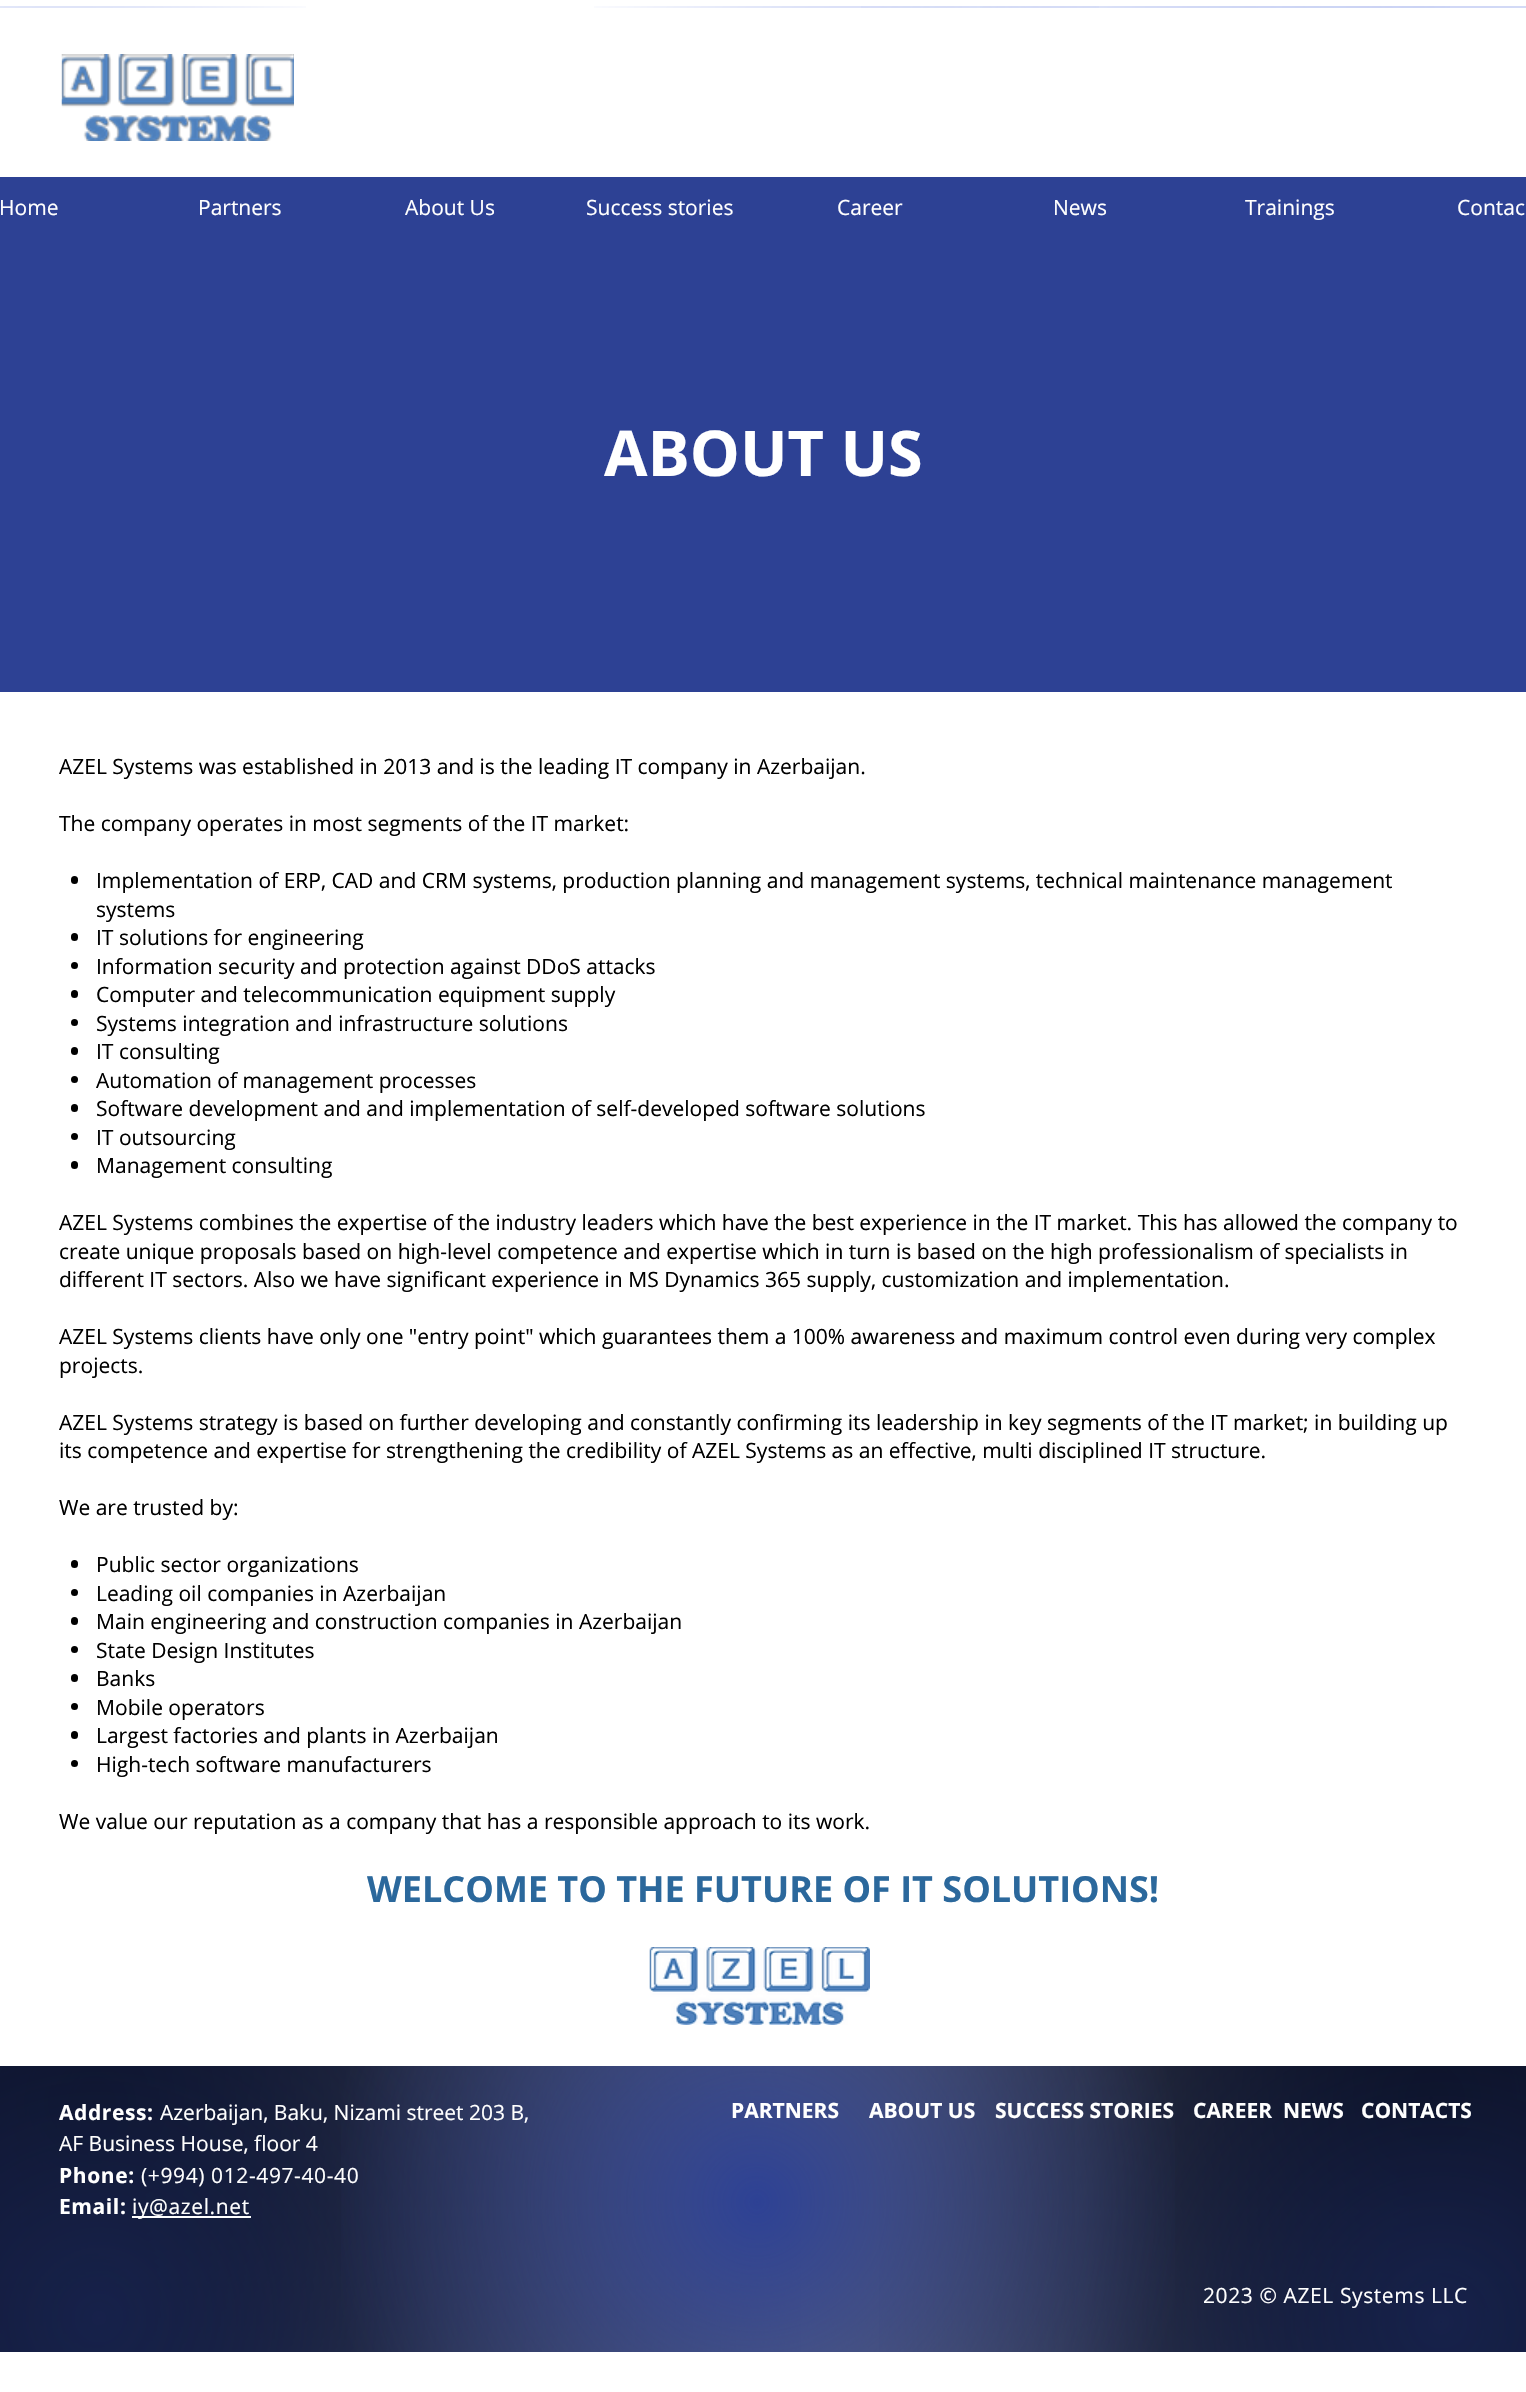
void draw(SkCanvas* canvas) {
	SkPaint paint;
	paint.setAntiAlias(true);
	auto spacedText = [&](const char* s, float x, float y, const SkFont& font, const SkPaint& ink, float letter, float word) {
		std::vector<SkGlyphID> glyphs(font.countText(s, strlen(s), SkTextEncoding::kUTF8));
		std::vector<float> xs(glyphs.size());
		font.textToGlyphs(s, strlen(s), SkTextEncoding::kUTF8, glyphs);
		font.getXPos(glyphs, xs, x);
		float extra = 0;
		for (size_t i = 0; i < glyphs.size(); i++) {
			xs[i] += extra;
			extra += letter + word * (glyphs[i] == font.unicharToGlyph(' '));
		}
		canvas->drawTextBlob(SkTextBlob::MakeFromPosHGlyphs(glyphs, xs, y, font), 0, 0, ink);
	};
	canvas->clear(0xffffffff);
	{
		const SkColor colors[] = {0xffcdd5f5, 0xffffffff};
		const float stops[] = {0, 0.35};
		paint.setShader(SkGradientShader::MakeRadial({1470, 44}, 1482, colors, stops, 2, SkTileMode::kClamp));
		paint.setAlpha(255);
	}
	canvas->drawRect(SkRect::MakeXYWH(980, 6, 546, 2), paint);
	{
		const SkColor colors[] = {0x330028c9, 0x000028c9};
		const float stops[] = {0, 0.35};
		paint.setShader(SkGradientShader::MakeRadial({846, 102}, 857, colors, stops, 2, SkTileMode::kClamp));
		paint.setAlpha(255);
	}
	canvas->drawRect(SkRect::MakeXYWH(594, 6, 505, 2), paint);
	{
		const SkColor colors[] = {0x330028c9, 0x000028c9};
		const float stops[] = {0, 0.2};
		paint.setShader(SkGradientShader::MakeRadial({64, 115}, 1468, colors, stops, 2, SkTileMode::kClamp));
		paint.setAlpha(255);
	}
	canvas->drawRect(SkRect::MakeXYWH(0, 6, 306, 2), paint);
	{
		const SkColor colors[] = {0x330028c9, 0x000028c9};
		const float stops[] = {0, 0.35};
		paint.setShader(SkGradientShader::MakeRadial({1158, 224}, 1178, colors, stops, 2, SkTileMode::kClamp));
		paint.setAlpha(255);
	}
	canvas->drawRect(SkRect::MakeXYWH(861, 6, 589, 2), paint);
	canvas->drawImageRect(SkImages::DeferredFromEncodedData(SkData::MakeFromFileName("img1.png")), SkRect::MakeXYWH(61, 54, 233, 87), SkSamplingOptions());
	paint.setShader(nullptr);
	paint.setColor(0xff2d4194);
	canvas->drawRect(SkRect::MakeXYWH(0, 177, 1526, 515), paint);
	SkFont f1(fontMgr->matchFamilyStyle("Open Sans", SkFontStyle::Normal()), 21);
	f1.setSubpixel(true);
	paint.setColor(0xffffffff);
	canvas->drawString("Home", -1, 215, f1, paint);
	canvas->drawString("Partners", 198, 215, f1, paint);
	canvas->drawString("About Us", 405, 215, f1, paint);
	canvas->drawString("Success stories", 586, 215, f1, paint);
	canvas->drawString("Career", 837, 215, f1, paint);
	canvas->drawString("News", 1053, 215, f1, paint);
	canvas->drawString("Trainings", 1245, 215, f1, paint);
	canvas->drawString("Contac", 1457, 215, f1, paint);
	SkFont f2(fontMgr->matchFamilyStyle("Open Sans", SkFontStyle::Bold()), 63);
	f2.setSubpixel(true);
	canvas->drawString("ABOUT US", 604, 476, f2, paint);
	paint.setColor(0xff000000);
	canvas->drawString("AZEL Systems was established in 2013 and is the leading IT company in Azerbaijan.", 59, 774, f1, paint);
	canvas->drawString("The company operates in most segments of the IT market:", 59, 831, f1, paint);
	canvas->drawRoundRect(SkRect::MakeXYWH(71, 876, 7, 8), 3.5, 3.5, paint);
	canvas->drawString("Implementation of ERP, CAD and CRM systems, production planning and management systems, technical maintenance management", 96, 888, f1, paint);
	canvas->drawString("systems", 96, 917, f1, paint);
	canvas->drawRoundRect(SkRect::MakeXYWH(71, 933, 7, 8), 3.5, 3.5, paint);
	canvas->drawString("IT solutions for engineering", 96, 945, f1, paint);
	canvas->drawCircle(74.5, 965.5, 3.5, paint);
	canvas->drawString("Information security and protection against DDoS attacks", 96, 974, f1, paint);
	canvas->drawRoundRect(SkRect::MakeXYWH(71, 990, 7, 8), 3.5, 3.5, paint);
	canvas->drawString("Computer and telecommunication equipment supply", 96, 1002, f1, paint);
	canvas->drawCircle(74.5, 1022.5, 3.5, paint);
	canvas->drawString("Systems integration and infrastructure solutions", 96, 1031, f1, paint);
	canvas->drawRoundRect(SkRect::MakeXYWH(71, 1047, 7, 8), 3.5, 3.5, paint);
	canvas->drawString("IT consulting", 96, 1059, f1, paint);
	canvas->drawCircle(74.5, 1079.5, 3.5, paint);
	canvas->drawString("Automation of management processes", 96, 1088, f1, paint);
	canvas->drawRoundRect(SkRect::MakeXYWH(71, 1104, 7, 8), 3.5, 3.5, paint);
	canvas->drawString("Software development and and implementation of self-developed software solutions", 96, 1116, f1, paint);
	canvas->drawCircle(74.5, 1136.5, 3.5, paint);
	canvas->drawString("IT outsourcing", 96, 1145, f1, paint);
	canvas->drawRoundRect(SkRect::MakeXYWH(71, 1161, 7, 8), 3.5, 3.5, paint);
	canvas->drawString("Management consulting", 96, 1173, f1, paint);
	canvas->drawString("AZEL Systems combines the expertise of the industry leaders which have the best experience in the IT market. This has allowed the company to", 59, 1230, f1, paint);
	canvas->drawString("create unique proposals based on high-level competence and expertise which in turn is based on the high professionalism of specialists in", 59, 1259, f1, paint);
	canvas->drawString("different IT sectors. Also we have significant experience in MS Dynamics 365 supply, customization and implementation.", 59, 1287, f1, paint);
	canvas->drawString("AZEL Systems clients have only one \"entry point\" which guarantees them a 100% awareness and maximum control even during very complex", 59, 1344, f1, paint);
	canvas->drawString("projects.", 59, 1373, f1, paint);
	canvas->drawString("AZEL Systems strategy is based on further developing and constantly confirming its leadership in key segments of the IT market; in building up", 59, 1430, f1, paint);
	canvas->drawString("its competence and expertise for strengthening the credibility of AZEL Systems as an effective, multi disciplined IT structure.", 59, 1458, f1, paint);
	canvas->drawString("We are trusted by:", 59, 1515, f1, paint);
	canvas->drawRoundRect(SkRect::MakeXYWH(71, 1560, 7, 8), 3.5, 3.5, paint);
	canvas->drawString("Public sector organizations", 96, 1572, f1, paint);
	canvas->drawCircle(74.5, 1592.5, 3.5, paint);
	canvas->drawString("Leading oil companies in Azerbaijan", 96, 1601, f1, paint);
	canvas->drawRoundRect(SkRect::MakeXYWH(71, 1617, 7, 8), 3.5, 3.5, paint);
	canvas->drawString("Main engineering and construction companies in Azerbaijan", 96, 1629, f1, paint);
	canvas->drawCircle(74.5, 1649.5, 3.5, paint);
	canvas->drawString("State Design Institutes", 96, 1658, f1, paint);
	canvas->drawRoundRect(SkRect::MakeXYWH(71, 1674, 7, 8), 3.5, 3.5, paint);
	canvas->drawString("Banks", 96, 1686, f1, paint);
	canvas->drawCircle(74.5, 1706.5, 3.5, paint);
	canvas->drawString("Mobile operators", 96, 1715, f1, paint);
	canvas->drawRoundRect(SkRect::MakeXYWH(71, 1731, 7, 8), 3.5, 3.5, paint);
	canvas->drawString("Largest factories and plants in Azerbaijan", 96, 1743, f1, paint);
	canvas->drawCircle(74.5, 1763.5, 3.5, paint);
	canvas->drawString("High-tech software manufacturers", 96, 1772, f1, paint);
	canvas->drawString("We value our reputation as a company that has a responsible approach to its work.", 59, 1829, f1, paint);
	SkFont f3(fontMgr->matchFamilyStyle("Open Sans", SkFontStyle::Bold()), 36);
	f3.setSubpixel(true);
	paint.setColor(0xff2b689c);
	canvas->drawString("WELCOME TO THE FUTURE OF IT SOLUTIONS!", 367, 1902, f3, paint);
	canvas->drawImageRect(SkImages::DeferredFromEncodedData(SkData::MakeFromFileName("img2.png")), SkRect::MakeXYWH(649, 1947, 221, 78), SkSamplingOptions());
	{
		const SkColor colors[] = {0xffffffff, 0xff1a2b6c};
		const float stops[] = {0, 1};
		paint.setShader(SkGradientShader::MakeRadial({747, 2207}, 794, colors, stops, 2, SkTileMode::kClamp));
		paint.setAlpha(255);
	}
	canvas->drawRect(SkRect::MakeXYWH(0, 2066, 1526, 286), paint);
	{
		const SkColor colors[] = {0xff000000, 0x00000000};
		const float stops[] = {0, 0.7};
		paint.setShader(SkGradientShader::MakeRadial({1431, 2098}, 1453, colors, stops, 2, SkTileMode::kClamp));
		paint.setAlpha(255);
	}
	canvas->drawRect(SkRect::MakeXYWH(435, 2066, 1091, 286), paint);
	{
		const SkColor colors[] = {0xff000000, 0x00000000};
		const float stops[] = {0, 0.7};
		paint.setShader(SkGradientShader::MakeRadial({94, 2102}, 1455, colors, stops, 2, SkTileMode::kClamp));
		paint.setAlpha(255);
	}
	canvas->drawRect(SkRect::MakeXYWH(0, 2066, 1075, 286), paint);
	{
		const SkColor colors[] = {0xfc16214a, 0x0016214a};
		const float stops[] = {0, 0.5};
		paint.setShader(SkGradientShader::MakeRadial({99, 2318}, 1450, colors, stops, 2, SkTileMode::kClamp));
		paint.setAlpha(255);
	}
	canvas->drawRect(SkRect::MakeXYWH(0, 2066, 801, 286), paint);
	{
		const SkColor colors[] = {0xff16214a, 0x0016214a};
		const float stops[] = {0, 0.4};
		paint.setShader(SkGradientShader::MakeRadial({1441, 2322}, 1463, colors, stops, 2, SkTileMode::kClamp));
		paint.setAlpha(255);
	}
	canvas->drawRect(SkRect::MakeXYWH(879, 2066, 647, 286), paint);
	{
		const SkColor colors[] = {0xff2d4194, 0x002d4194};
		const float stops[] = {0, 0.55};
		paint.setShader(SkGradientShader::MakeRadial({757, 2202}, 784, colors, stops, 2, SkTileMode::kClamp));
		paint.setAlpha(255);
	}
	canvas->drawRect(SkRect::MakeXYWH(341, 2066, 834, 286), paint);
	SkFont f4(fontMgr->matchFamilyStyle("Open Sans", SkFontStyle::Bold()), 21);
	f4.setSubpixel(true);
	paint.setShader(nullptr);
	paint.setColor(0xffffffff);
	spacedText("Address:", 59, 2120, f4, paint, 0.6, 0);
	canvas->drawString("Azerbaijan, Baku, Nizami street 203 B,", 160, 2120, f1, paint);
	canvas->drawString("AF Business House, floor 4", 59, 2151, f1, paint);
	spacedText("Phone:", 59, 2183, f4, paint, 0.6, 0);
	spacedText("(+994) 012-497-40-40", 141, 2183, f1, paint, 0.6, 0);
	spacedText("Email:", 59, 2214, f4, paint, 0.6, 0);
	canvas->drawRect(SkRect::MakeXYWH(132, 2216, 119, 2), paint);
	spacedText("iy@azel.net", 132, 2214, f1, paint, 0.6, 0);
	canvas->drawString("PARTNERS", 731, 2118, f4, paint);
	canvas->drawString("ABOUT US", 869, 2118, f4, paint);
	canvas->drawString("SUCCESS STORIES", 995, 2118, f4, paint);
	canvas->drawString("CAREER", 1193, 2118, f4, paint);
	canvas->drawString("NEWS", 1283, 2118, f4, paint);
	canvas->drawString("CONTACTS", 1361, 2118, f4, paint);
	spacedText("2023 © AZEL Systems LLC", 1203, 2303, f1, paint, 0.6, 0);
}
